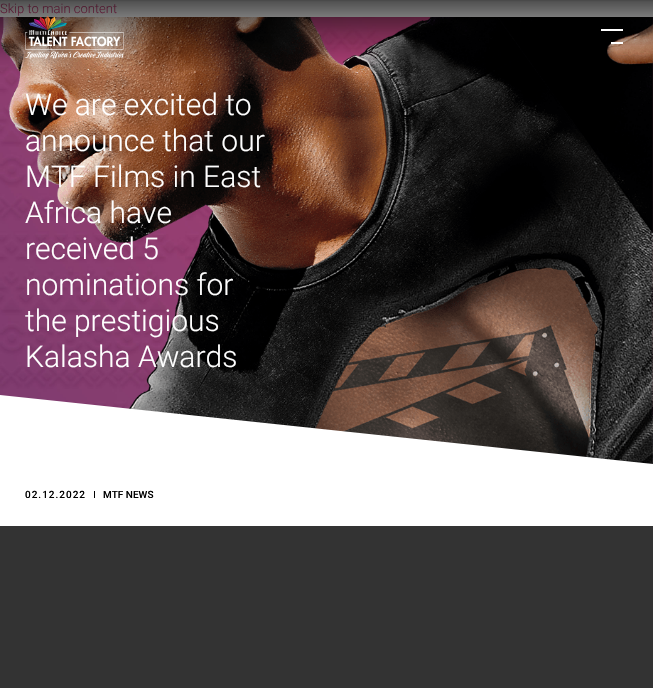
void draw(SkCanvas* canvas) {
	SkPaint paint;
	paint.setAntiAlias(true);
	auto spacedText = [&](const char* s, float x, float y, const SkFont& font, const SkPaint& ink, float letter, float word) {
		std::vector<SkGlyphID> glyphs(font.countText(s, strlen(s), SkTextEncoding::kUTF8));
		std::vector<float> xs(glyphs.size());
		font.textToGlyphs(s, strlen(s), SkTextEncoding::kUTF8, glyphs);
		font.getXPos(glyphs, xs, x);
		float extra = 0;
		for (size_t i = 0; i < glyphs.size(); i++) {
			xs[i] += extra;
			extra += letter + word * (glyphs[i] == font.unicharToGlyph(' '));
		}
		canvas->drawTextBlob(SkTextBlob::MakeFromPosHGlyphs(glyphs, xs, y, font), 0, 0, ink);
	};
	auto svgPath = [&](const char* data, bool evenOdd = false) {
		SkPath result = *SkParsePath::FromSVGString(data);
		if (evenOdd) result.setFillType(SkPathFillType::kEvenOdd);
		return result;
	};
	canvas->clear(0xffffffff);
	SkFont f1(fontMgr->matchFamilyStyle("Roboto", SkFontStyle(300, SkFontStyle::kNormal_Width, SkFontStyle::kUpright_Slant)), 13);
	f1.setSubpixel(true);
	paint.setColor(0xffd5447e);
	canvas->drawString("Skip to main content", 0, 13, f1, paint);
	canvas->drawImageRect(SkImages::DeferredFromEncodedData(SkData::MakeFromFileName("img2.png")), SkRect::MakeXYWH(0, 17, 653, 398), SkSamplingOptions());
	canvas->drawImageRect(SkImages::DeferredFromEncodedData(SkData::MakeFromFileName("img3.png")), SkRect::MakeXYWH(0, 17, 653, 447), SkSamplingOptions());
	{
		const SkColor colors[] = {0xbf000000, 0xb0000000, 0xab000000, 0x6b000000, 0x59000000, 0x4a000000, 0x45000000, 0x3d000000, 0x33000000, 0x33000000, 0x12000000, 0x00000000};
		const float stops[] = {0, 0.01, 0.03, 0.36, 0.43, 0.51, 0.53, 0.58, 0.61, 0.63, 0.82, 1};
		const SkPoint ends[] = {{327, 0}, {327, 75}};
		paint.setShader(SkGradientShader::MakeLinear(ends, colors, stops, 12, SkTileMode::kClamp));
		paint.setAlpha(255);
	}
	canvas->drawRect(SkRect::MakeXYWH(0, 0, 653, 71), paint);
	canvas->drawImageRect(SkImages::DeferredFromEncodedData(SkData::MakeFromFileName("img1.png")), SkRect::MakeXYWH(25, 16, 99, 43), SkSamplingOptions());
	paint.setShader(nullptr);
	paint.setColor(0xffffffff);
	canvas->drawRect(SkRect::MakeXYWH(601, 29, 22, 2), paint);
	canvas->drawRect(SkRect::MakeXYWH(611, 42, 12, 2), paint);
	SkFont f2(fontMgr->matchFamilyStyle("Roboto", SkFontStyle(300, SkFontStyle::kNormal_Width, SkFontStyle::kUpright_Slant)), 30);
	f2.setSubpixel(true);
	canvas->drawString("We are excited to", 25, 115, f2, paint);
	canvas->drawString("announce that our", 25, 151, f2, paint);
	canvas->drawString("MTF Films in East", 25, 187, f2, paint);
	canvas->drawString("Africa have", 25, 223, f2, paint);
	canvas->drawString("received 5", 25, 259, f2, paint);
	canvas->drawString("nominations for", 25, 295, f2, paint);
	canvas->drawString("the prestigious", 25, 331, f2, paint);
	canvas->drawString("Kalasha Awards", 25, 367, f2, paint);
	canvas->drawPath(svgPath("M0 395L653 464V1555L0 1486Z"), paint);
	SkFont f3(fontMgr->matchFamilyStyle("Roboto", SkFontStyle(500, SkFontStyle::kNormal_Width, SkFontStyle::kUpright_Slant)), 10);
	f3.setSubpixel(true);
	paint.setColor(0xff000000);
	spacedText("02.12.2022", 25, 498, f3, paint, 1, 0);
	canvas->drawRect(SkRect::MakeXYWH(94, 491, 1, 7), paint);
	canvas->drawString("MTF NEWS", 103, 498, f3, paint);
	paint.setColor(0xff333333);
	canvas->drawRect(SkRect::MakeXYWH(0, 526, 653, 162), paint);
}
